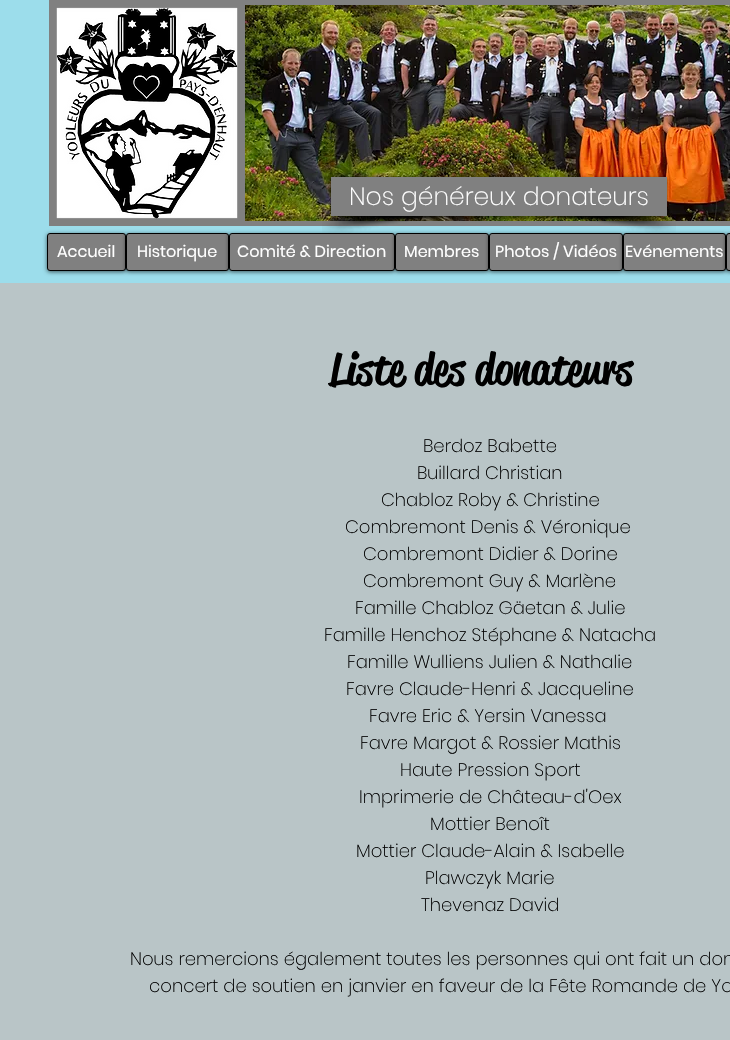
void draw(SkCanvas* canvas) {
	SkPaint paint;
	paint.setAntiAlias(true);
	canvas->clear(0xff9cddeb);
	paint.setColor(0xff808080);
	canvas->drawRect(SkRect::MakeXYWH(49, 0, 681, 226), paint);
	canvas->drawImageRect(SkImages::DeferredFromEncodedData(SkData::MakeFromFileName("img1.png")), SkRect::MakeXYWH(245, 5, 485, 216), SkSamplingOptions());
	canvas->drawImageRect(SkImages::DeferredFromEncodedData(SkData::MakeFromFileName("img2.png")), SkRect::MakeXYWH(56, 7, 182, 212), SkSamplingOptions());
	canvas->drawImageRect(SkImages::DeferredFromEncodedData(SkData::MakeFromFileName("img3.png")), SkRect::MakeXYWH(322, 216, 134, 17), SkSamplingOptions());
	canvas->drawImageRect(SkImages::DeferredFromEncodedData(SkData::MakeFromFileName("img4.png")), SkRect::MakeXYWH(530, 216, 146, 17), SkSamplingOptions());
	paint.setColor(0x99000000);
	paint.setMaskFilter(SkMaskFilter::MakeBlur(kNormal_SkBlurStyle, 2));
	canvas->drawRect(SkRect::MakeXYWH(331, 178, 336, 39), paint);
	paint.setMaskFilter(nullptr);
	paint.setColor(0xff808080);
	canvas->drawRect(SkRect::MakeXYWH(331, 177, 336, 39), paint);
	SkFont f1(fontMgr->matchFamilyStyle("Poppins", SkFontStyle(200, SkFontStyle::kNormal_Width, SkFontStyle::kUpright_Slant)), 25);
	f1.setSubpixel(true);
	paint.setColor(0xffffffff);
	canvas->drawString("Nos généreux donateurs", 349, 205, f1, paint);
	paint.setColor(0x99000000);
	paint.setMaskFilter(SkMaskFilter::MakeBlur(kNormal_SkBlurStyle, 2));
	canvas->drawRoundRect(SkRect::MakeXYWH(47, 234, 79, 38), 3, 3, paint);
	paint.setMaskFilter(nullptr);
	paint.setColor(0xff808080);
	canvas->drawRoundRect(SkRect::MakeXYWH(47.5, 233.5, 78, 37), 2.5, 2.5, paint);
	paint.setStroke(true);
	paint.setStrokeWidth(1);
	paint.setColor(0xff000000);
	canvas->drawRoundRect(SkRect::MakeXYWH(47.5, 233.5, 78, 37), 2.5, 2.5, paint);
	SkFont f2(fontMgr->matchFamilyStyle("Poppins", SkFontStyle::Normal()), 16);
	f2.setSubpixel(true);
	paint.setStroke(false);
	paint.setColor(0xffffffff);
	canvas->drawString("Accueil", 57, 257, f2, paint);
	paint.setColor(0x99000000);
	paint.setMaskFilter(SkMaskFilter::MakeBlur(kNormal_SkBlurStyle, 2));
	canvas->drawRoundRect(SkRect::MakeXYWH(126, 234, 103, 38), 3, 3, paint);
	paint.setMaskFilter(nullptr);
	paint.setColor(0xff808080);
	canvas->drawRoundRect(SkRect::MakeXYWH(126.5, 233.5, 102, 37), 2.5, 2.5, paint);
	paint.setStroke(true);
	paint.setColor(0xff000000);
	canvas->drawRoundRect(SkRect::MakeXYWH(126.5, 233.5, 102, 37), 2.5, 2.5, paint);
	paint.setStroke(false);
	paint.setColor(0xffffffff);
	canvas->drawString("Historique", 137, 257, f2, paint);
	paint.setColor(0x99000000);
	paint.setMaskFilter(SkMaskFilter::MakeBlur(kNormal_SkBlurStyle, 2));
	canvas->drawRoundRect(SkRect::MakeXYWH(229, 234, 166, 38), 3, 3, paint);
	paint.setMaskFilter(nullptr);
	paint.setColor(0xff808080);
	canvas->drawRoundRect(SkRect::MakeXYWH(229.5, 233.5, 165, 37), 2.5, 2.5, paint);
	paint.setStroke(true);
	paint.setColor(0xff000000);
	canvas->drawRoundRect(SkRect::MakeXYWH(229.5, 233.5, 165, 37), 2.5, 2.5, paint);
	paint.setStroke(false);
	paint.setColor(0xffffffff);
	canvas->drawString("Comité & Direction", 237, 257, f2, paint);
	paint.setColor(0x99000000);
	paint.setMaskFilter(SkMaskFilter::MakeBlur(kNormal_SkBlurStyle, 2));
	canvas->drawRoundRect(SkRect::MakeXYWH(395, 234, 94, 38), 3, 3, paint);
	paint.setMaskFilter(nullptr);
	paint.setColor(0xff808080);
	canvas->drawRoundRect(SkRect::MakeXYWH(395.5, 233.5, 93, 37), 2.5, 2.5, paint);
	paint.setStroke(true);
	paint.setColor(0xff000000);
	canvas->drawRoundRect(SkRect::MakeXYWH(395.5, 233.5, 93, 37), 2.5, 2.5, paint);
	paint.setStroke(false);
	paint.setColor(0xffffffff);
	canvas->drawString("Membres", 404, 257, f2, paint);
	paint.setColor(0x99000000);
	paint.setMaskFilter(SkMaskFilter::MakeBlur(kNormal_SkBlurStyle, 2));
	canvas->drawRoundRect(SkRect::MakeXYWH(489, 234, 134, 38), 3, 3, paint);
	paint.setMaskFilter(nullptr);
	paint.setColor(0xff808080);
	canvas->drawRoundRect(SkRect::MakeXYWH(489.5, 233.5, 133, 37), 2.5, 2.5, paint);
	paint.setStroke(true);
	paint.setColor(0xff000000);
	canvas->drawRoundRect(SkRect::MakeXYWH(489.5, 233.5, 133, 37), 2.5, 2.5, paint);
	paint.setStroke(false);
	paint.setColor(0xffffffff);
	canvas->drawString("Photos / Vidéos", 495, 257, f2, paint);
	paint.setColor(0x99000000);
	paint.setMaskFilter(SkMaskFilter::MakeBlur(kNormal_SkBlurStyle, 2));
	canvas->drawRoundRect(SkRect::MakeXYWH(623, 234, 103, 38), 3, 3, paint);
	paint.setMaskFilter(nullptr);
	paint.setColor(0xff808080);
	canvas->drawRoundRect(SkRect::MakeXYWH(623.5, 233.5, 102, 37), 2.5, 2.5, paint);
	paint.setStroke(true);
	paint.setColor(0xff000000);
	canvas->drawRoundRect(SkRect::MakeXYWH(623.5, 233.5, 102, 37), 2.5, 2.5, paint);
	paint.setStroke(false);
	paint.setColor(0xffffffff);
	canvas->drawString("Evénements", 625, 257, f2, paint);
	paint.setColor(0x99000000);
	paint.setMaskFilter(SkMaskFilter::MakeBlur(kNormal_SkBlurStyle, 2));
	canvas->drawRoundRect(SkRect::MakeXYWH(726, 234, 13, 38), 3, 3, paint);
	paint.setMaskFilter(nullptr);
	paint.setColor(0xff808080);
	canvas->drawRoundRect(SkRect::MakeXYWH(726.5, 233.5, 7, 37), 2.5, 2.5, paint);
	paint.setStroke(true);
	paint.setColor(0xff000000);
	canvas->drawRoundRect(SkRect::MakeXYWH(726.5, 233.5, 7, 37), 2.5, 2.5, paint);
	paint.setStroke(false);
	paint.setColor(0xffb9c5c7);
	canvas->drawRect(SkRect::MakeXYWH(0, 283, 730, 757), paint);
	SkFont f3(fontMgr->matchFamilyStyle("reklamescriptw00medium", SkFontStyle(500, SkFontStyle::kNormal_Width, SkFontStyle::kUpright_Slant)), 44);
	f3.setSubpixel(true);
	paint.setColor(0xff000000);
	canvas->drawString("Liste des donateurs", 329, 384, f3, paint);
	SkFont f4(fontMgr->matchFamilyStyle("Poppins", SkFontStyle(200, SkFontStyle::kNormal_Width, SkFontStyle::kUpright_Slant)), 18);
	f4.setSubpixel(true);
	canvas->drawString("Berdoz Babette", 423, 452, f4, paint);
	canvas->drawString("Buillard Christian", 417, 479, f4, paint);
	canvas->drawString("Chabloz Roby & Christine", 381, 506, f4, paint);
	canvas->drawString("Combremont Denis & Véronique", 345, 533, f4, paint);
	canvas->drawString("Combremont Didier & Dorine", 363, 560, f4, paint);
	canvas->drawString("Combremont Guy & Marlène", 363, 587, f4, paint);
	canvas->drawString("Famille Chabloz Gäetan & Julie", 355, 614, f4, paint);
	canvas->drawString("Famille Henchoz Stéphane & Natacha", 324, 641, f4, paint);
	canvas->drawString("Famille Wulliens Julien & Nathalie", 347, 668, f4, paint);
	canvas->drawString("Favre Claude-Henri & Jacqueline", 346, 695, f4, paint);
	canvas->drawString("Favre Eric & Yersin Vanessa", 369, 722, f4, paint);
	canvas->drawString("Favre Margot & Rossier Mathis", 360, 749, f4, paint);
	canvas->drawString("Haute Pression Sport", 400, 776, f4, paint);
	canvas->drawString("Imprimerie de Château-d'Oex", 359, 803, f4, paint);
	canvas->drawString("Mottier Benoît", 430, 830, f4, paint);
	canvas->drawString("Mottier Claude-Alain & Isabelle", 356, 857, f4, paint);
	canvas->drawString("Plawczyk Marie", 425, 884, f4, paint);
	canvas->drawString("Thevenaz David", 421, 911, f4, paint);
	canvas->drawString("Nous remercions également toutes les personnes qui ont fait un don", 130, 965, f4, paint);
	canvas->drawString("concert de soutien en janvier en faveur de la Fête Romande de Yo", 149, 992, f4, paint);
}
